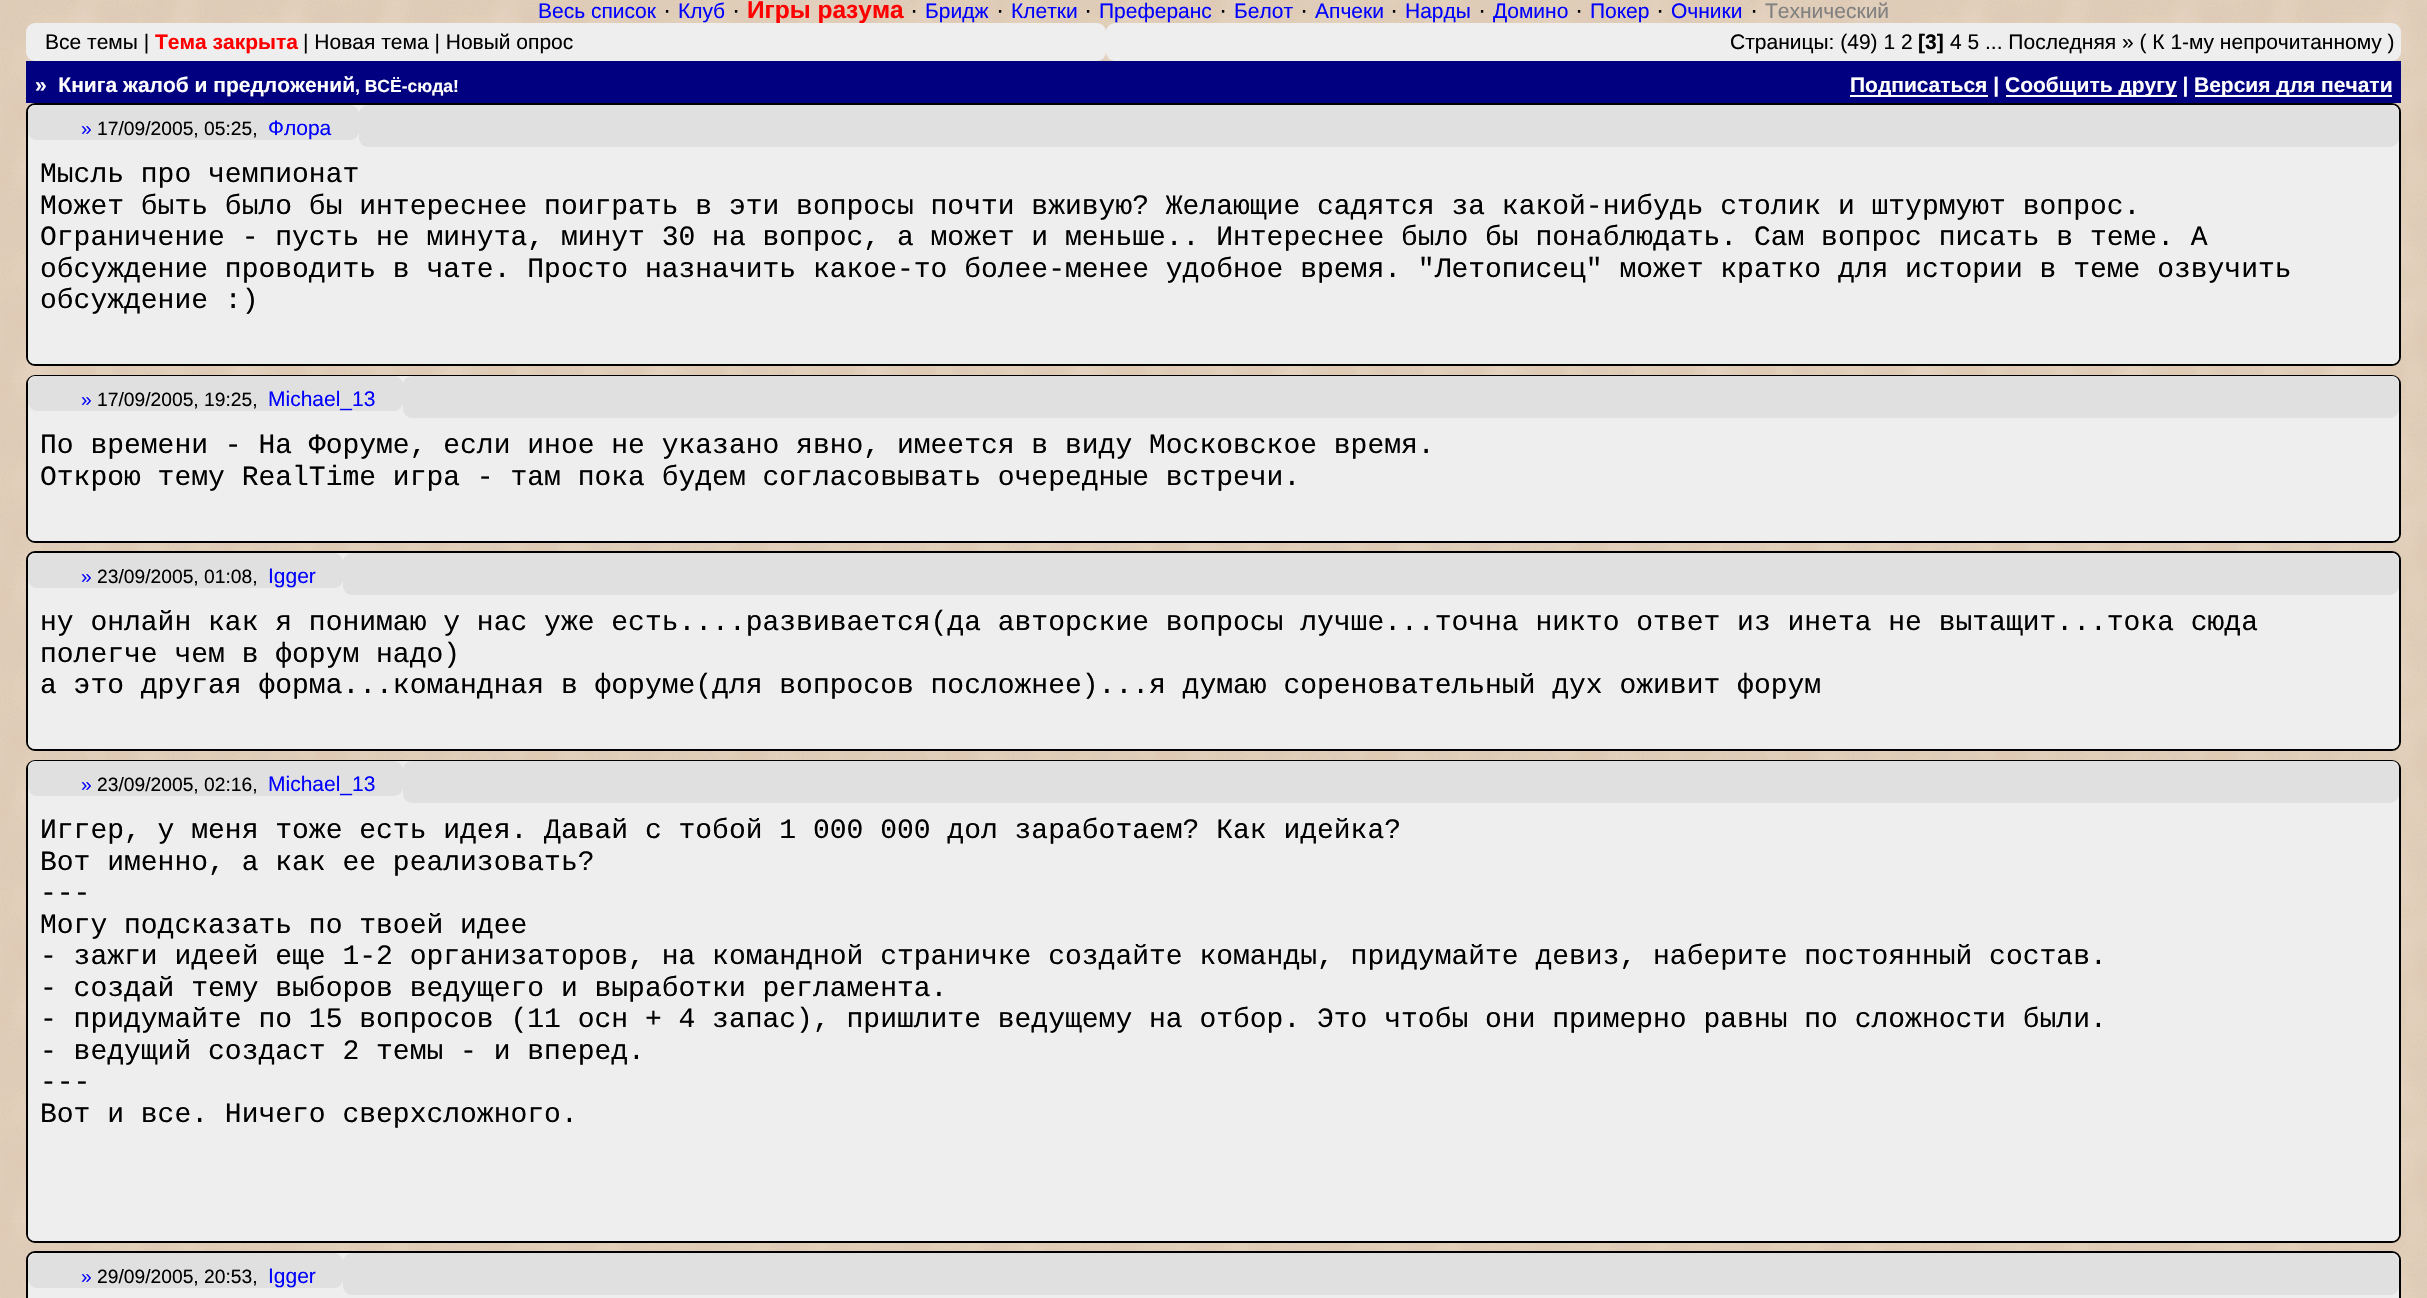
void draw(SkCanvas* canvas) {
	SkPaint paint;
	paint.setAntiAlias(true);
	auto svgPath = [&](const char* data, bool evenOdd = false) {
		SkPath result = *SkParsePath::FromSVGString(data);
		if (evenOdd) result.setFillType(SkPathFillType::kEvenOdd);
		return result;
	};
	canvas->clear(0xffffffff);
	canvas->drawImageRect(SkImages::DeferredFromEncodedData(SkData::MakeFromFileName("img1.png")), SkRect::MakeXYWH(0, 0, 2427, 1298), SkSamplingOptions());
	SkFont f1(fontMgr->matchFamilyStyle("Liberation Sans", SkFontStyle::Normal()), 21);
	f1.setSubpixel(true);
	paint.setColor(0xff0000ff);
	canvas->drawString("Весь список", 538, 18, f1, paint);
	SkFont f2(fontMgr->matchFamilyStyle("Liberation Sans", SkFontStyle::Normal()), 24.5);
	f2.setSubpixel(true);
	paint.setColor(0xff000000);
	canvas->drawString("·", 663, 18, f2, paint);
	paint.setColor(0xff0000ff);
	canvas->drawString("Клуб", 678, 18, f1, paint);
	paint.setColor(0xff000000);
	canvas->drawString("·", 732, 18, f2, paint);
	SkFont f3(fontMgr->matchFamilyStyle("Liberation Sans", SkFontStyle::Bold()), 24.5);
	f3.setSubpixel(true);
	paint.setColor(0xffff0000);
	canvas->drawString("Игры разума", 747, 18, f3, paint);
	paint.setColor(0xff000000);
	canvas->drawString("·", 910, 18, f2, paint);
	paint.setColor(0xff0000ff);
	canvas->drawString("Бридж", 925, 18, f1, paint);
	paint.setColor(0xff000000);
	canvas->drawString("·", 996, 18, f2, paint);
	paint.setColor(0xff0000ff);
	canvas->drawString("Клетки", 1011, 18, f1, paint);
	paint.setColor(0xff000000);
	canvas->drawString("·", 1084, 18, f2, paint);
	paint.setColor(0xff0000ff);
	canvas->drawString("Преферанс", 1099, 18, f1, paint);
	paint.setColor(0xff000000);
	canvas->drawString("·", 1219, 18, f2, paint);
	paint.setColor(0xff0000ff);
	canvas->drawString("Белот", 1234, 18, f1, paint);
	paint.setColor(0xff000000);
	canvas->drawString("·", 1300, 18, f2, paint);
	paint.setColor(0xff0000ff);
	canvas->drawString("Апчеки", 1315, 18, f1, paint);
	paint.setColor(0xff000000);
	canvas->drawString("·", 1390, 18, f2, paint);
	paint.setColor(0xff0000ff);
	canvas->drawString("Нарды", 1405, 18, f1, paint);
	paint.setColor(0xff000000);
	canvas->drawString("·", 1478, 18, f2, paint);
	paint.setColor(0xff0000ff);
	canvas->drawString("Домино", 1493, 18, f1, paint);
	paint.setColor(0xff000000);
	canvas->drawString("·", 1575, 18, f2, paint);
	paint.setColor(0xff0000ff);
	canvas->drawString("Покер", 1590, 18, f1, paint);
	paint.setColor(0xff000000);
	canvas->drawString("·", 1656, 18, f2, paint);
	paint.setColor(0xff0000ff);
	canvas->drawString("Очники", 1671, 18, f1, paint);
	paint.setColor(0xff000000);
	canvas->drawString("·", 1750, 18, f2, paint);
	paint.setColor(0xff808080);
	canvas->drawString("Технический", 1765, 18, f1, paint);
	paint.setColor(0xffeeeeee);
	canvas->drawRoundRect(SkRect::MakeXYWH(26, 23, 1080, 38), 9, 9, paint);
	paint.setColor(0xff000000);
	canvas->drawString("Все темы |", 45, 49, f1, paint);
	SkFont f4(fontMgr->matchFamilyStyle("Liberation Sans", SkFontStyle::Bold()), 21);
	f4.setSubpixel(true);
	paint.setColor(0xffff0000);
	canvas->drawString("Тема закрыта", 155, 49, f4, paint);
	paint.setColor(0xff000000);
	canvas->drawString("| Новая тема | Новый опрос", 303, 49, f1, paint);
	paint.setColor(0xffeeeeee);
	canvas->drawRoundRect(SkRect::MakeXYWH(1106, 23, 1295, 38), 9, 9, paint);
	paint.setColor(0xff000000);
	canvas->drawString("Страницы: (49) 1 2", 1730, 49, f1, paint);
	canvas->drawString("[3]", 1918, 49, f4, paint);
	canvas->drawString("4 5 ... Последняя » ( К 1-му непрочитанному )", 1950, 49, f1, paint);
	paint.setColor(0xff000080);
	canvas->drawRect(SkRect::MakeXYWH(26, 61, 2375, 42), paint);
	paint.setColor(0xffffffff);
	canvas->drawString("»  Книга жалоб и предложений", 35, 92, f4, paint);
	SkFont f5(fontMgr->matchFamilyStyle("Liberation Sans", SkFontStyle::Bold()), 17.5);
	f5.setSubpixel(true);
	canvas->drawString(", ВСЁ-сюда!", 355, 92, f5, paint);
	canvas->drawRect(SkRect::MakeXYWH(1850, 95, 138, 2), paint);
	canvas->drawString("Подписаться |", 1850, 92, f4, paint);
	canvas->drawRect(SkRect::MakeXYWH(2006, 95, 171, 2), paint);
	canvas->drawString("Сообщить другу |", 2005, 92, f4, paint);
	canvas->drawRect(SkRect::MakeXYWH(2195, 95, 197, 2), paint);
	canvas->drawString("Версия для печати", 2194, 92, f4, paint);
	paint.setStroke(true);
	paint.setStrokeWidth(2);
	paint.setColor(0xff000000);
	canvas->drawRoundRect(SkRect::MakeXYWH(27, 104, 2373, 261), 8, 8, paint);
	paint.setStroke(false);
	paint.setColor(0xffeeeeee);
	canvas->drawPath(svgPath("M35 105H2392C2396 105 2399 108 2399 112V147H28V112C28 108 31 105 35 105Z"), paint);
	paint.setColor(0xffe0e0e0);
	canvas->drawRoundRect(SkRect::MakeXYWH(28, 105, 331, 35), 9, 9, paint);
	SkFont f6(fontMgr->matchFamilyStyle("Liberation Sans", SkFontStyle::Normal()), 19.25);
	f6.setSubpixel(true);
	paint.setColor(0xff0000ff);
	canvas->drawString("»", 81, 135, f6, paint);
	paint.setColor(0xff000000);
	canvas->drawString("17/09/2005, 05:25,", 97, 135, f6, paint);
	paint.setColor(0xff0000ff);
	canvas->drawString("Флора", 268, 135, f1, paint);
	paint.setColor(0xffe0e0e0);
	canvas->drawRoundRect(SkRect::MakeXYWH(359, 105, 2040, 42), 9, 9, paint);
	paint.setColor(0xffeeeeee);
	canvas->drawRect(SkRect::MakeXYWH(28, 147, 2371, 182), paint);
	SkFont f7(fontMgr->matchFamilyStyle("Liberation Mono", SkFontStyle::Normal()), 28);
	f7.setSubpixel(true);
	paint.setColor(0xff000000);
	canvas->drawString("Мысль про чемпионат", 40, 182, f7, paint);
	canvas->drawString("Может быть было бы интереснее поиграть в эти вопросы почти вживую? Желающие садятся за какой-нибудь столик и штурмуют вопрос.", 40, 214, f7, paint);
	canvas->drawString("Ограничение - пусть не минута, минут 30 на вопрос, а может и меньше.. Интереснее было бы понаблюдать. Сам вопрос писать в теме. А", 40, 245, f7, paint);
	canvas->drawString("обсуждение проводить в чате. Просто назначить какое-то более-менее удобное время. \"Летописец\" может кратко для истории в теме озвучить", 40, 277, f7, paint);
	canvas->drawString("обсуждение :)", 40, 308, f7, paint);
	paint.setColor(0xffeeeeee);
	canvas->drawPath(svgPath("M28 329H2399V357C2399 361 2396 364 2392 364H35C31 364 28 361 28 357Z"), paint);
	paint.setStroke(true);
	paint.setColor(0xff000000);
	canvas->drawRoundRect(SkRect::MakeXYWH(27, 376, 2373, 166), 8, 8, paint);
	paint.setStroke(false);
	paint.setColor(0xffeeeeee);
	canvas->drawPath(svgPath("M35 376H2392C2396 376 2399 379 2399 383V418H28V383C28 379 31 376 35 376Z"), paint);
	paint.setColor(0xffe0e0e0);
	canvas->drawRoundRect(SkRect::MakeXYWH(28, 376, 375, 35), 9, 9, paint);
	paint.setColor(0xff0000ff);
	canvas->drawString("»", 81, 406, f6, paint);
	paint.setColor(0xff000000);
	canvas->drawString("17/09/2005, 19:25,", 97, 406, f6, paint);
	paint.setColor(0xff0000ff);
	canvas->drawString("Michael_13", 268, 406, f1, paint);
	paint.setColor(0xffe0e0e0);
	canvas->drawRoundRect(SkRect::MakeXYWH(403, 376, 1996, 42), 9, 9, paint);
	paint.setColor(0xffeeeeee);
	canvas->drawRect(SkRect::MakeXYWH(28, 418, 2371, 88), paint);
	paint.setColor(0xff000000);
	canvas->drawString("По времени - На Форуме, если иное не указано явно, имеется в виду Московское время.", 40, 453, f7, paint);
	canvas->drawString("Открою тему RealTime игра - там пока будем согласовывать очередные встречи.", 40, 485, f7, paint);
	paint.setColor(0xffeeeeee);
	canvas->drawPath(svgPath("M28 506H2399V534C2399 538 2396 541 2392 541H35C31 541 28 538 28 534Z"), paint);
	paint.setStroke(true);
	paint.setColor(0xff000000);
	canvas->drawRoundRect(SkRect::MakeXYWH(27, 552, 2373, 198), 8, 8, paint);
	paint.setStroke(false);
	paint.setColor(0xffeeeeee);
	canvas->drawPath(svgPath("M35 553H2392C2396 553 2399 556 2399 560V595H28V560C28 556 31 553 35 553Z"), paint);
	paint.setColor(0xffe0e0e0);
	canvas->drawRoundRect(SkRect::MakeXYWH(28, 553, 315, 35), 9, 9, paint);
	paint.setColor(0xff0000ff);
	canvas->drawString("»", 81, 583, f6, paint);
	paint.setColor(0xff000000);
	canvas->drawString("23/09/2005, 01:08,", 97, 583, f6, paint);
	paint.setColor(0xff0000ff);
	canvas->drawString("Igger", 268, 583, f1, paint);
	paint.setColor(0xffe0e0e0);
	canvas->drawRoundRect(SkRect::MakeXYWH(343, 553, 2056, 42), 9, 9, paint);
	paint.setColor(0xffeeeeee);
	canvas->drawRect(SkRect::MakeXYWH(28, 595, 2371, 119), paint);
	paint.setColor(0xff000000);
	canvas->drawString("ну онлайн как я понимаю у нас уже есть....развивается(да авторские вопросы лучше...точна никто ответ из инета не вытащит...тока сюда", 40, 630, f7, paint);
	canvas->drawString("полегче чем в форум надо)", 40, 662, f7, paint);
	canvas->drawString("а это другая форма...командная в форуме(для вопросов посложнее)...я думаю сореновательный дух оживит форум", 40, 693, f7, paint);
	paint.setColor(0xffeeeeee);
	canvas->drawPath(svgPath("M28 714H2399V742C2399 746 2396 749 2392 749H35C31 749 28 746 28 742Z"), paint);
	paint.setStroke(true);
	paint.setColor(0xff000000);
	canvas->drawRoundRect(SkRect::MakeXYWH(27, 761, 2373, 481), 8, 8, paint);
	paint.setStroke(false);
	paint.setColor(0xffeeeeee);
	canvas->drawPath(svgPath("M35 761H2392C2396 761 2399 764 2399 768V803H28V768C28 764 31 761 35 761Z"), paint);
	paint.setColor(0xffe0e0e0);
	canvas->drawRoundRect(SkRect::MakeXYWH(28, 761, 375, 35), 9, 9, paint);
	paint.setColor(0xff0000ff);
	canvas->drawString("»", 81, 791, f6, paint);
	paint.setColor(0xff000000);
	canvas->drawString("23/09/2005, 02:16,", 97, 791, f6, paint);
	paint.setColor(0xff0000ff);
	canvas->drawString("Michael_13", 268, 791, f1, paint);
	paint.setColor(0xffe0e0e0);
	canvas->drawRoundRect(SkRect::MakeXYWH(403, 761, 1996, 42), 9, 9, paint);
	paint.setColor(0xffeeeeee);
	canvas->drawRect(SkRect::MakeXYWH(28, 803, 2371, 403), paint);
	paint.setColor(0xff000000);
	canvas->drawString("Иггер, у меня тоже есть идея. Давай с тобой 1 000 000 дол заработаем? Как идейка?", 40, 838, f7, paint);
	canvas->drawString("Вот именно, а как ее реализовать?", 40, 870, f7, paint);
	canvas->drawString("---", 40, 901, f7, paint);
	canvas->drawString("Могу подсказать по твоей идее", 40, 933, f7, paint);
	canvas->drawString("- зажги идеей еще 1-2 организаторов, на командной страничке создайте команды, придумайте девиз, наберите постоянный состав.", 40, 964, f7, paint);
	canvas->drawString("- создай тему выборов ведущего и выработки регламента.", 40, 996, f7, paint);
	canvas->drawString("- придумайте по 15 вопросов (11 осн + 4 запас), пришлите ведущему на отбор. Это чтобы они примерно равны по сложности были.", 40, 1027, f7, paint);
	canvas->drawString("- ведущий создаст 2 темы - и вперед.", 40, 1059, f7, paint);
	canvas->drawString("---", 40, 1090, f7, paint);
	canvas->drawString("Вот и все. Ничего сверхсложного.", 40, 1122, f7, paint);
	paint.setColor(0xffeeeeee);
	canvas->drawPath(svgPath("M28 1206H2399V1234C2399 1238 2396 1241 2392 1241H35C31 1241 28 1238 28 1234Z"), paint);
	paint.setStroke(true);
	paint.setColor(0xff000000);
	canvas->drawRoundRect(SkRect::MakeXYWH(27, 1252, 2373, 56), 8, 8, paint);
	paint.setStroke(false);
	paint.setColor(0xffeeeeee);
	canvas->drawPath(svgPath("M35 1253H2392C2396 1253 2399 1256 2399 1260V1295H28V1260C28 1256 31 1253 35 1253Z"), paint);
	paint.setColor(0xffe0e0e0);
	canvas->drawRoundRect(SkRect::MakeXYWH(28, 1253, 315, 35), 9, 9, paint);
	paint.setColor(0xff0000ff);
	canvas->drawString("»", 81, 1283, f6, paint);
	paint.setColor(0xff000000);
	canvas->drawString("29/09/2005, 20:53,", 97, 1283, f6, paint);
	paint.setColor(0xff0000ff);
	canvas->drawString("Igger", 268, 1283, f1, paint);
	paint.setColor(0xffe0e0e0);
	canvas->drawRoundRect(SkRect::MakeXYWH(343, 1253, 2056, 42), 9, 9, paint);
	paint.setColor(0xffeeeeee);
	canvas->drawRect(SkRect::MakeXYWH(28, 1295, 2371, 3), paint);
}
